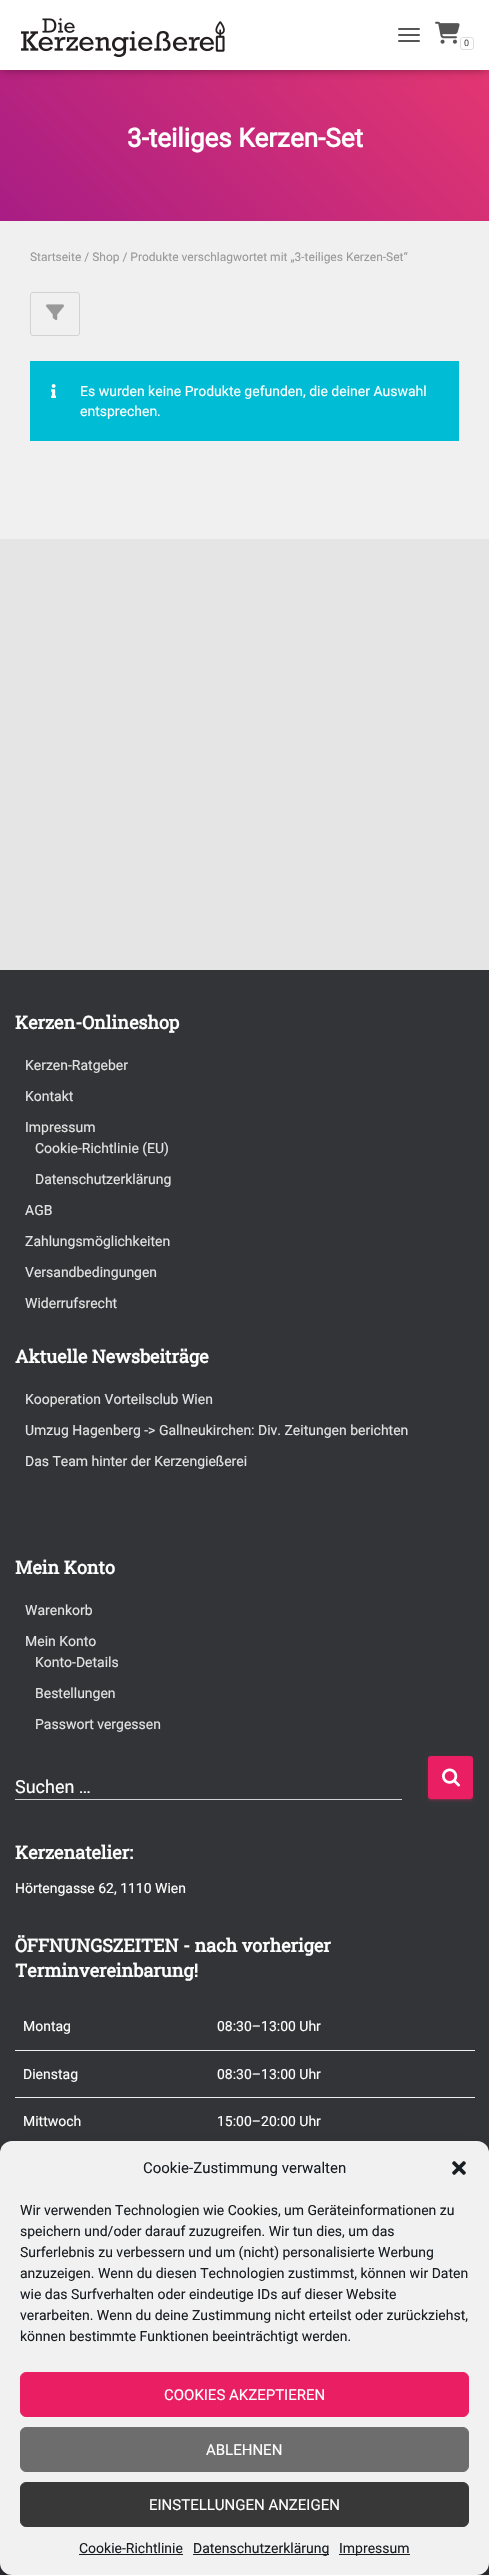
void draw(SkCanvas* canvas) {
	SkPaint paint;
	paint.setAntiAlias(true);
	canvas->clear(0xffe5e5e5);
	{
		const SkColor colors[] = {0xffa81d84, 0xffea396f};
		const float stops[] = {0, 1};
		const SkPoint ends[] = {{67, 288}, {422, -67}};
		paint.setShader(SkGradientShader::MakeLinear(ends, colors, stops, 2, SkTileMode::kClamp));
		paint.setAlpha(255);
	}
	canvas->drawRect(SkRect::MakeXYWH(0, 70, 489, 151), paint);
	paint.setShader(nullptr);
	paint.setColor(0x1a000000);
	paint.setMaskFilter(SkMaskFilter::MakeBlur(kNormal_SkBlurStyle, 2.5));
	canvas->drawRect(SkRect::MakeXYWH(2, 6, 485, 66), paint);
	paint.setMaskFilter(nullptr);
	paint.setColor(0x1f000000);
	paint.setMaskFilter(SkMaskFilter::MakeBlur(kNormal_SkBlurStyle, 5));
	canvas->drawRect(SkRect::MakeXYWH(0, 1, 489, 70), paint);
	paint.setMaskFilter(nullptr);
	paint.setColor(0x6b000000);
	paint.setMaskFilter(SkMaskFilter::MakeBlur(kNormal_SkBlurStyle, 5));
	canvas->drawRect(SkRect::MakeXYWH(6, 7, 477, 58), paint);
	paint.setMaskFilter(nullptr);
	paint.setColor(0xffffffff);
	canvas->drawRect(SkRect::MakeXYWH(0, 0, 489, 70), paint);
	canvas->drawImageRect(SkImages::DeferredFromEncodedData(SkData::MakeFromFileName("img1.png")), SkRect::MakeXYWH(21, 18, 204, 39), SkSamplingOptions());
	paint.setColor(0xff555555);
	canvas->drawRoundRect(SkRect::MakeXYWH(398, 28, 22, 2), 1, 1, paint);
	canvas->drawRoundRect(SkRect::MakeXYWH(398, 34, 22, 2), 1, 1, paint);
	canvas->drawRoundRect(SkRect::MakeXYWH(398, 40, 22, 2), 1, 1, paint);
	canvas->drawImageRect(SkImages::DeferredFromEncodedData(SkData::MakeFromFileName("img2.png")), SkRect::MakeXYWH(435, 21, 25, 23), SkSamplingOptions());
	paint.setStroke(true);
	paint.setStrokeWidth(1);
	paint.setColor(0xffdddddd);
	canvas->drawRoundRect(SkRect::MakeXYWH(460.5, 37.5, 13, 12), 2.5, 2.5, paint);
	SkFont f1(fontMgr->matchFamilyStyle("Roboto", SkFontStyle::Normal()), 9);
	f1.setSubpixel(true);
	paint.setStroke(false);
	paint.setColor(0xff555555);
	canvas->drawString("0", 464, 46, f1, paint);
	SkFont f2(fontMgr->matchFamilyStyle("Roboto", SkFontStyle::Bold()), 26);
	f2.setSubpixel(true);
	paint.setColor(0xffffffff);
	canvas->drawString("3-teiliges Kerzen-Set", 127, 147, f2, paint);
	paint.setColor(0xfff0f0f0);
	canvas->drawRect(SkRect::MakeXYWH(0, 221, 489, 318), paint);
	SkFont f3(fontMgr->matchFamilyStyle("Roboto", SkFontStyle::Normal()), 12);
	f3.setSubpixel(true);
	paint.setColor(0xff999999);
	canvas->drawString("Startseite / Shop / Produkte verschlagwortet mit „3-teiliges Kerzen-Set“", 30, 261, f3, paint);
	paint.setStroke(true);
	paint.setColor(0xffd2d2d2);
	canvas->drawRoundRect(SkRect::MakeXYWH(30.5, 292.5, 49, 43), 2.5, 2.5, paint);
	canvas->drawImageRect(SkImages::DeferredFromEncodedData(SkData::MakeFromFileName("img3.png")), SkRect::MakeXYWH(46, 304, 18, 17), SkSamplingOptions());
	paint.setStroke(false);
	paint.setColor(0xff00bcd4);
	canvas->drawRect(SkRect::MakeXYWH(30, 361, 429, 80), paint);
	canvas->drawImageRect(SkImages::DeferredFromEncodedData(SkData::MakeFromFileName("img4.png")), SkRect::MakeXYWH(51, 384, 5, 14), SkSamplingOptions());
	SkFont f4(fontMgr->matchFamilyStyle("Roboto", SkFontStyle::Normal()), 14);
	f4.setSubpixel(true);
	paint.setColor(0xffffffff);
	canvas->drawString("Es wurden keine Produkte gefunden, die deiner Auswahl", 80, 396, f4, paint);
	canvas->drawString("entsprechen.", 80, 416, f4, paint);
	paint.setColor(0xff323437);
	canvas->drawRect(SkRect::MakeXYWH(0, 970, 489, 1605), paint);
	SkFont f5(fontMgr->matchFamilyStyle("Roboto Slab", SkFontStyle::Bold()), 18);
	f5.setSubpixel(true);
	paint.setColor(0xffffffff);
	canvas->drawString("Kerzen-Onlineshop", 15, 1029, f5, paint);
	paint.setColor(0xffe2e3e3);
	canvas->drawString("Kerzen-Ratgeber", 25, 1070, f4, paint);
	canvas->drawString("Kontakt", 25, 1101, f4, paint);
	canvas->drawString("Impressum", 25, 1132, f4, paint);
	canvas->drawString("Cookie-Richtlinie (EU)", 35, 1153, f4, paint);
	canvas->drawString("Datenschutzerklärung", 35, 1184, f4, paint);
	canvas->drawString("AGB", 25, 1215, f4, paint);
	canvas->drawString("Zahlungsmöglichkeiten", 25, 1246, f4, paint);
	canvas->drawString("Versandbedingungen", 25, 1277, f4, paint);
	canvas->drawString("Widerrufsrecht", 25, 1308, f4, paint);
	paint.setColor(0xffffffff);
	canvas->drawString("Aktuelle Newsbeiträge", 15, 1363, f5, paint);
	paint.setColor(0xffe2e3e3);
	canvas->drawString("Kooperation Vorteilsclub Wien", 25, 1404, f4, paint);
	canvas->drawString("Umzug Hagenberg -> Gallneukirchen: Div. Zeitungen berichten", 25, 1435, f4, paint);
	canvas->drawString("Das Team hinter der Kerzengießerei", 25, 1466, f4, paint);
	paint.setColor(0xffffffff);
	canvas->drawString("Mein Konto", 15, 1574, f5, paint);
	paint.setColor(0xffe2e3e3);
	canvas->drawString("Warenkorb", 25, 1615, f4, paint);
	canvas->drawString("Mein Konto", 25, 1646, f4, paint);
	canvas->drawString("Konto-Details", 35, 1667, f4, paint);
	canvas->drawString("Bestellungen", 35, 1698, f4, paint);
	canvas->drawString("Passwort vergessen", 35, 1729, f4, paint);
	SkFont f6(fontMgr->matchFamilyStyle("Roboto", SkFontStyle::Normal()), 18);
	f6.setSubpixel(true);
	paint.setColor(0xffffffff);
	canvas->drawString("Suchen …", 15, 1793, f6, paint);
	paint.setColor(0xffd2d2d2);
	canvas->drawRect(SkRect::MakeXYWH(15, 1799, 387, 1), paint);
	paint.setColor(0x1fe91e63);
	paint.setMaskFilter(SkMaskFilter::MakeBlur(kNormal_SkBlurStyle, 2.5));
	canvas->drawRoundRect(SkRect::MakeXYWH(428, 1757, 45, 43), 3, 3, paint);
	paint.setMaskFilter(nullptr);
	paint.setColor(0x33e91e63);
	paint.setMaskFilter(SkMaskFilter::MakeBlur(kNormal_SkBlurStyle, 0.5));
	canvas->drawRoundRect(SkRect::MakeXYWH(430, 1761, 41, 39), 1, 1, paint);
	paint.setMaskFilter(nullptr);
	paint.setColor(0x24e91e63);
	paint.setMaskFilter(SkMaskFilter::MakeBlur(kNormal_SkBlurStyle, 1));
	canvas->drawRoundRect(SkRect::MakeXYWH(428, 1758, 45, 43), 3, 3, paint);
	paint.setMaskFilter(nullptr);
	paint.setColor(0xffe91e63);
	canvas->drawRoundRect(SkRect::MakeXYWH(428, 1756, 45, 43), 3, 3, paint);
	canvas->drawImageRect(SkImages::DeferredFromEncodedData(SkData::MakeFromFileName("img5.png")), SkRect::MakeXYWH(442, 1768, 18, 19), SkSamplingOptions());
	paint.setColor(0xffffffff);
	canvas->drawString("Kerzenatelier:", 15, 1859, f5, paint);
	canvas->drawString("Hörtengasse 62, 1110 Wien", 15, 1893, f4, paint);
	canvas->drawString("ÖFFNUNGSZEITEN - nach vorheriger", 15, 1952, f5, paint);
	canvas->drawString("Terminvereinbarung!", 15, 1977, f5, paint);
	paint.setColor(0xffeeeeee);
	canvas->drawRect(SkRect::MakeXYWH(15, 2050, 460, 1), paint);
	paint.setColor(0xffffffff);
	canvas->drawString("Montag", 23, 2031, f4, paint);
	canvas->drawString("08:30–13:00 Uhr", 217, 2031, f4, paint);
	paint.setColor(0xffeeeeee);
	canvas->drawRect(SkRect::MakeXYWH(15, 2097, 460, 1), paint);
	paint.setColor(0xffffffff);
	canvas->drawString("Dienstag", 23, 2079, f4, paint);
	canvas->drawString("08:30–13:00 Uhr", 217, 2079, f4, paint);
	canvas->drawString("Mittwoch", 23, 2126, f4, paint);
	canvas->drawString("15:00–20:00 Uhr", 217, 2126, f4, paint);
	paint.setColor(0x3b000000);
	paint.setMaskFilter(SkMaskFilter::MakeBlur(kNormal_SkBlurStyle, 3));
	canvas->drawRoundRect(SkRect::MakeXYWH(0, 2147, 489, 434), 12, 12, paint);
	paint.setMaskFilter(nullptr);
	paint.setColor(0x30000000);
	paint.setMaskFilter(SkMaskFilter::MakeBlur(kNormal_SkBlurStyle, 10));
	canvas->drawRoundRect(SkRect::MakeXYWH(0, 2151, 489, 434), 12, 12, paint);
	paint.setMaskFilter(nullptr);
	paint.setColor(0xff808080);
	paint.setMaskFilter(SkMaskFilter::MakeBlur(kNormal_SkBlurStyle, 2.5));
	canvas->drawRoundRect(SkRect::MakeXYWH(419, 2501, 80, 60), 2, 2, paint);
	paint.setMaskFilter(nullptr);
	paint.setColor(0xfff1f1f1);
	canvas->drawRoundRect(SkRect::MakeXYWH(0, 2141, 489, 434), 12, 12, paint);
	SkFont f7(fontMgr->matchFamilyStyle("Roboto", SkFontStyle::Normal()), 15);
	f7.setSubpixel(true);
	paint.setColor(0xff191e23);
	canvas->drawString("Cookie-Zustimmung verwalten", 143, 2173, f7, paint);
	canvas->drawImageRect(SkImages::DeferredFromEncodedData(SkData::MakeFromFileName("img6.png")), SkRect::MakeXYWH(452, 2161, 14, 14), SkSamplingOptions());
	canvas->drawString("Wir verwenden Technologien wie Cookies, um Geräteinformationen zu", 20, 2215, f4, paint);
	canvas->drawString("speichern und/oder darauf zuzugreifen. Wir tun dies, um das", 20, 2236, f4, paint);
	canvas->drawString("Surferlebnis zu verbessern und um (nicht) personalisierte Werbung", 20, 2257, f4, paint);
	canvas->drawString("anzuzeigen. Wenn du diesen Technologien zustimmst, können wir Daten", 20, 2278, f4, paint);
	canvas->drawString("wie das Surfverhalten oder eindeutige IDs auf dieser Website", 20, 2299, f4, paint);
	canvas->drawString("verarbeiten. Wenn du deine Zustimmung nicht erteilst oder zurückziehst,", 20, 2320, f4, paint);
	canvas->drawString("können bestimmte Funktionen beeinträchtigt werden.", 20, 2341, f4, paint);
	paint.setColor(0xffe91e63);
	canvas->drawRoundRect(SkRect::MakeXYWH(20.5, 2372.5, 448, 44), 5.5, 5.5, paint);
	paint.setStroke(true);
	canvas->drawRoundRect(SkRect::MakeXYWH(20.5, 2372.5, 448, 44), 5.5, 5.5, paint);
	paint.setStroke(false);
	paint.setColor(0xffffffff);
	canvas->drawString("COOKIES AKZEPTIEREN", 164, 2400, f7, paint);
	paint.setColor(0xff6d6d6d);
	canvas->drawRoundRect(SkRect::MakeXYWH(20.5, 2427.5, 448, 44), 5.5, 5.5, paint);
	paint.setStroke(true);
	canvas->drawRoundRect(SkRect::MakeXYWH(20.5, 2427.5, 448, 44), 5.5, 5.5, paint);
	paint.setStroke(false);
	paint.setColor(0xffffffff);
	canvas->drawString("ABLEHNEN", 206, 2455, f7, paint);
	paint.setColor(0xff383838);
	canvas->drawRoundRect(SkRect::MakeXYWH(20.5, 2482.5, 448, 44), 5.5, 5.5, paint);
	paint.setStroke(true);
	canvas->drawRoundRect(SkRect::MakeXYWH(20.5, 2482.5, 448, 44), 5.5, 5.5, paint);
	paint.setStroke(false);
	paint.setColor(0xffffffff);
	canvas->drawString("EINSTELLUNGEN ANZEIGEN", 149, 2510, f7, paint);
	paint.setColor(0xff191e23);
	canvas->drawString("Cookie-Richtlinie", 79, 2553, f4, paint);
	canvas->drawRect(SkRect::MakeXYWH(79, 2554, 104, 1), paint);
	canvas->drawRect(SkRect::MakeXYWH(193, 2554, 136, 1), paint);
	canvas->drawString("Datenschutzerklärung", 193, 2553, f4, paint);
	canvas->drawRect(SkRect::MakeXYWH(339, 2554, 71, 1), paint);
	canvas->drawString("Impressum", 339, 2553, f4, paint);
}
